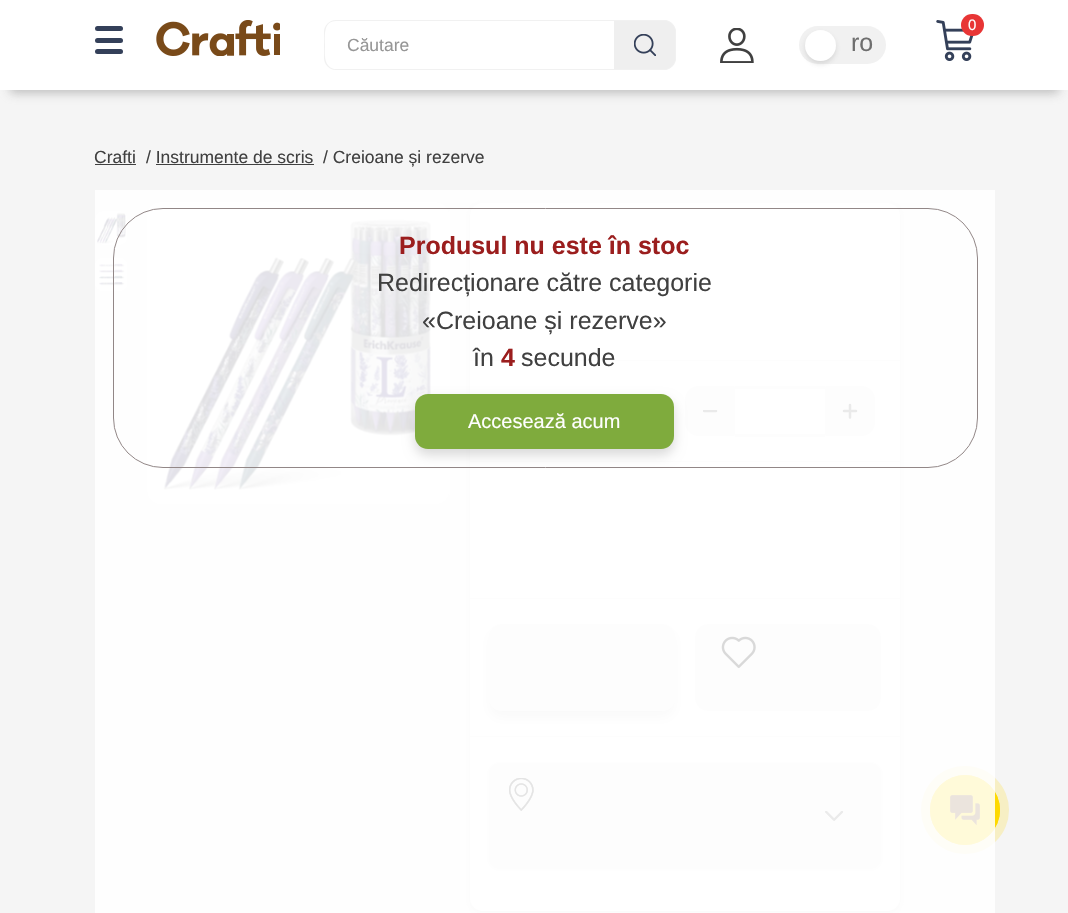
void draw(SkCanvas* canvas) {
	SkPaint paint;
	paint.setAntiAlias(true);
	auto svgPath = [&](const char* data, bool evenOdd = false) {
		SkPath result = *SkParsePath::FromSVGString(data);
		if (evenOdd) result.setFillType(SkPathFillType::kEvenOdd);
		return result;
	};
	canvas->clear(0xfff5f5f5);
	paint.setColor(0x99969696);
	paint.setMaskFilter(SkMaskFilter::MakeBlur(kNormal_SkBlurStyle, 5));
	canvas->drawRect(SkRect::MakeXYWH(10, 23, 1049, 70), paint);
	paint.setMaskFilter(nullptr);
	paint.setColor(0xffffffff);
	canvas->drawRect(SkRect::MakeXYWH(0, 0, 1068, 90), paint);
	paint.setColor(0xff344059);
	canvas->drawRoundRect(SkRect::MakeXYWH(95, 26, 28, 5), 2.5, 2.5, paint);
	canvas->drawRoundRect(SkRect::MakeXYWH(95, 38, 28, 5), 2.5, 2.5, paint);
	canvas->drawRoundRect(SkRect::MakeXYWH(95, 49, 28, 5), 2.5, 2.5, paint);
	canvas->drawImageRect(SkImages::DeferredFromEncodedData(SkData::MakeFromFileName("img1.png")), SkRect::MakeXYWH(156, 20, 124, 36), SkSamplingOptions());
	paint.setColor(0xfff1f1f1);
	canvas->drawPath(svgPath("M336 20H614V70H336C329 70 324 64 324 58V32C324 26 329 20 336 20ZM336 21H614V69H334C323 66 325 53 325 45C325 36 323 21 336 21Z", true), paint);
	SkFont f1(fontMgr->matchFamilyStyle("Liberation Sans", SkFontStyle::Normal()), 17.5);
	f1.setSubpixel(true);
	paint.setColor(0xff969696);
	canvas->drawString("Căutare", 347, 51, f1, paint);
	paint.setColor(0xffefefef);
	canvas->drawPath(svgPath("M614 20H663C670 20 676 26 676 33V57C676 64 670 70 663 70H614Z"), paint);
	paint.setColor(0xfff1f1f1);
	canvas->drawPath(svgPath("M614 20H664C671 20 676 26 676 32V58C676 64 671 70 664 70H614ZM614 21H664C670 21 675 26 675 32V58C675 64 670 69 664 69H614Z", true), paint);
	canvas->drawImageRect(SkImages::DeferredFromEncodedData(SkData::MakeFromFileName("img2.png")), SkRect::MakeXYWH(634, 34, 22, 22), SkSamplingOptions());
	canvas->drawImageRect(SkImages::DeferredFromEncodedData(SkData::MakeFromFileName("img3.png")), SkRect::MakeXYWH(720, 28, 34, 35), SkSamplingOptions());
	canvas->drawRoundRect(SkRect::MakeXYWH(799, 26, 87, 38), 19, 19, paint);
	paint.setColor(0x336e6e6e);
	paint.setMaskFilter(SkMaskFilter::MakeBlur(kNormal_SkBlurStyle, 2.5));
	canvas->drawRoundRect(SkRect::MakeXYWH(805, 33, 31, 31), 15.5, 15.5, paint);
	paint.setMaskFilter(nullptr);
	paint.setColor(0xffffffff);
	canvas->drawCircle(820.5, 45.5, 15.5, paint);
	SkFont f2(fontMgr->matchFamilyStyle("Liberation Sans", SkFontStyle::Normal()), 25);
	f2.setSubpixel(true);
	paint.setColor(0xff6e6e6e);
	canvas->drawString("ro", 851, 51, f2, paint);
	canvas->drawImageRect(SkImages::DeferredFromEncodedData(SkData::MakeFromFileName("img4.png")), SkRect::MakeXYWH(936, 20, 38, 41), SkSamplingOptions());
	paint.setColor(0xffe83535);
	canvas->drawRoundRect(SkRect::MakeXYWH(961, 14, 23, 22), 11, 11, paint);
	SkFont f3(fontMgr->matchFamilyStyle("Liberation Sans", SkFontStyle::Normal()), 15);
	f3.setSubpixel(true);
	paint.setColor(0xffffffff);
	canvas->drawString("0", 968, 30, f3, paint);
	paint.setColor(0xff404040);
	canvas->drawString("Crafti", 94, 163, f1, paint);
	canvas->drawRect(SkRect::MakeXYWH(95, 164, 41, 1), paint);
	canvas->drawString("/ Instrumente de scris", 146, 163, f1, paint);
	canvas->drawRect(SkRect::MakeXYWH(156, 164, 158, 1), paint);
	canvas->drawString("/ Creioane și rezerve", 323, 163, f1, paint);
	canvas->drawImageRect(SkImages::DeferredFromEncodedData(SkData::MakeFromFileName("img5.png")), SkRect::MakeXYWH(95, 211, 32, 34), SkSamplingOptions());
	canvas->drawImageRect(SkImages::DeferredFromEncodedData(SkData::MakeFromFileName("img6.png")), SkRect::MakeXYWH(95, 257, 32, 34), SkSamplingOptions());
	canvas->drawImageRect(SkImages::DeferredFromEncodedData(SkData::MakeFromFileName("img7.png")), SkRect::MakeXYWH(147, 202, 302, 302), SkSamplingOptions());
	canvas->drawImageRect(SkImages::DeferredFromEncodedData(SkData::MakeFromFileName("img8.png")), SkRect::MakeXYWH(449, 211, 1, 285), SkSamplingOptions());
	paint.setColor(0x336e6e6e);
	paint.setMaskFilter(SkMaskFilter::MakeBlur(kNormal_SkBlurStyle, 3));
	canvas->drawRoundRect(SkRect::MakeXYWH(470, 204, 430, 709), 13, 13, paint);
	paint.setMaskFilter(nullptr);
	paint.setColor(0xffffffff);
	canvas->drawRoundRect(SkRect::MakeXYWH(470, 203, 430, 708), 13, 13, paint);
	paint.setColor(0xfff1f1f1);
	canvas->drawRect(SkRect::MakeXYWH(470, 360, 430, 1), paint);
	canvas->drawRect(SkRect::MakeXYWH(470, 461, 430, 1), paint);
	canvas->drawPath(svgPath("M698 386.5H734.5V435.5H698C691 435.5 685.5 430 685.5 423V399C685.5 392 691 386.5 698 386.5Z"), paint);
	paint.setStroke(true);
	paint.setStrokeWidth(1);
	canvas->drawPath(svgPath("M698 386.5H734.5V435.5H698C691 435.5 685.5 430 685.5 423V399C685.5 392 691 386.5 698 386.5Z"), paint);
	canvas->save();
	canvas->clipRect(SkRect::MakeXYWH(703, 410, 15, 3));
	paint.setStrokeWidth(2.5);
	paint.setStrokeCap(SkPaint::kRound_Cap);
	paint.setColor(0xff6e6e6e);
	canvas->drawPath(svgPath("M716 411H704"), paint);
	canvas->restore();
	paint.setStroke(false);
	paint.setColor(0xfff1f1f1);
	canvas->drawRect(SkRect::MakeXYWH(735, 386, 90, 3), paint);
	canvas->drawRect(SkRect::MakeXYWH(735, 434, 90, 3), paint);
	canvas->drawPath(svgPath("M825.5 386.5H862C869 386.5 874.5 392 874.5 399V423C874.5 430 869 435.5 862 435.5H825.5Z"), paint);
	paint.setStroke(true);
	paint.setStrokeWidth(1);
	paint.setStrokeCap(SkPaint::kButt_Cap);
	canvas->drawPath(svgPath("M825.5 386.5H862C869 386.5 874.5 392 874.5 399V423C874.5 430 869 435.5 862 435.5H825.5Z"), paint);
	paint.setStrokeWidth(2.5);
	paint.setStrokeCap(SkPaint::kRound_Cap);
	paint.setColor(0xff6e6e6e);
	canvas->drawPath(svgPath("M856 411H844M850 405V417.5"), paint);
	paint.setStroke(false);
	paint.setColor(0xfff1f1f1);
	canvas->drawRect(SkRect::MakeXYWH(470, 598, 430, 1), paint);
	canvas->drawRect(SkRect::MakeXYWH(470, 736, 430, 1), paint);
	paint.setColor(0x26000000);
	paint.setMaskFilter(SkMaskFilter::MakeBlur(kNormal_SkBlurStyle, 6));
	canvas->drawRoundRect(SkRect::MakeXYWH(489, 630, 186, 88), 13, 13, paint);
	paint.setMaskFilter(nullptr);
	paint.setColor(0xfff1f1f1);
	canvas->drawRoundRect(SkRect::MakeXYWH(489, 624, 186, 87), 13, 13, paint);
	canvas->drawRoundRect(SkRect::MakeXYWH(695, 624, 186, 87), 13, 13, paint);
	canvas->drawImageRect(SkImages::DeferredFromEncodedData(SkData::MakeFromFileName("img9.png")), SkRect::MakeXYWH(721, 636, 35, 33), SkSamplingOptions());
	paint.setColor(0x1a000000);
	paint.setMaskFilter(SkMaskFilter::MakeBlur(kNormal_SkBlurStyle, 2.5));
	canvas->drawRoundRect(SkRect::MakeXYWH(489, 764, 392, 105), 10, 10, paint);
	paint.setMaskFilter(nullptr);
	paint.setColor(0xfff1f1f1);
	canvas->drawRoundRect(SkRect::MakeXYWH(489, 763, 392, 105), 10, 10, paint);
	canvas->drawImageRect(SkImages::DeferredFromEncodedData(SkData::MakeFromFileName("img10.png")), SkRect::MakeXYWH(509, 778, 25, 33), SkSamplingOptions());
	canvas->drawImageRect(SkImages::DeferredFromEncodedData(SkData::MakeFromFileName("img11.png")), SkRect::MakeXYWH(825, 811, 19, 10), SkSamplingOptions());
	paint.setColor(0xfff7efc4);
	canvas->drawCircle(965, 810, 44, paint);
	paint.setStroke(true);
	paint.setStrokeWidth(1);
	paint.setStrokeCap(SkPaint::kButt_Cap);
	paint.setColor(0xfffed900);
	canvas->drawCircle(965, 810, 34.5, paint);
	paint.setStroke(false);
	canvas->drawCircle(965, 810, 35, paint);
	canvas->drawImageRect(SkImages::DeferredFromEncodedData(SkData::MakeFromFileName("img12.png")), SkRect::MakeXYWH(950, 795, 30, 30), SkSamplingOptions());
	paint.setColor(0xd9ffffff);
	canvas->drawRect(SkRect::MakeXYWH(95, 190, 900, 723), paint);
	paint.setStroke(true);
	paint.setColor(0xff928787);
	canvas->drawRoundRect(SkRect::MakeXYWH(113.5, 208.5, 864, 259), 49.5, 49.5, paint);
	SkFont f4(fontMgr->matchFamilyStyle("Liberation Sans", SkFontStyle::Bold()), 25);
	f4.setSubpixel(true);
	paint.setStroke(false);
	paint.setColor(0xff9b1e1e);
	canvas->drawString("Produsul nu este în stoc", 399, 254, f4, paint);
	paint.setColor(0xff404040);
	canvas->drawString("Redirecționare către categorie", 377, 291, f2, paint);
	canvas->drawString("«Creioane și rezerve»", 422, 329, f2, paint);
	canvas->drawString("în", 473, 366, f2, paint);
	paint.setColor(0xff9b1e1e);
	canvas->drawString("4", 501, 366, f4, paint);
	paint.setColor(0xff404040);
	canvas->drawString("secunde", 521, 366, f2, paint);
	paint.setColor(0x26000000);
	paint.setMaskFilter(SkMaskFilter::MakeBlur(kNormal_SkBlurStyle, 6));
	canvas->drawRoundRect(SkRect::MakeXYWH(415, 400, 259, 55), 13, 13, paint);
	paint.setMaskFilter(nullptr);
	paint.setColor(0xff7fab3d);
	canvas->drawRoundRect(SkRect::MakeXYWH(415, 394, 259, 55), 13, 13, paint);
	SkFont f5(fontMgr->matchFamilyStyle("Liberation Sans", SkFontStyle::Normal()), 20);
	f5.setSubpixel(true);
	paint.setColor(0xffffffff);
	canvas->drawString("Accesează acum", 468, 428, f5, paint);
}
